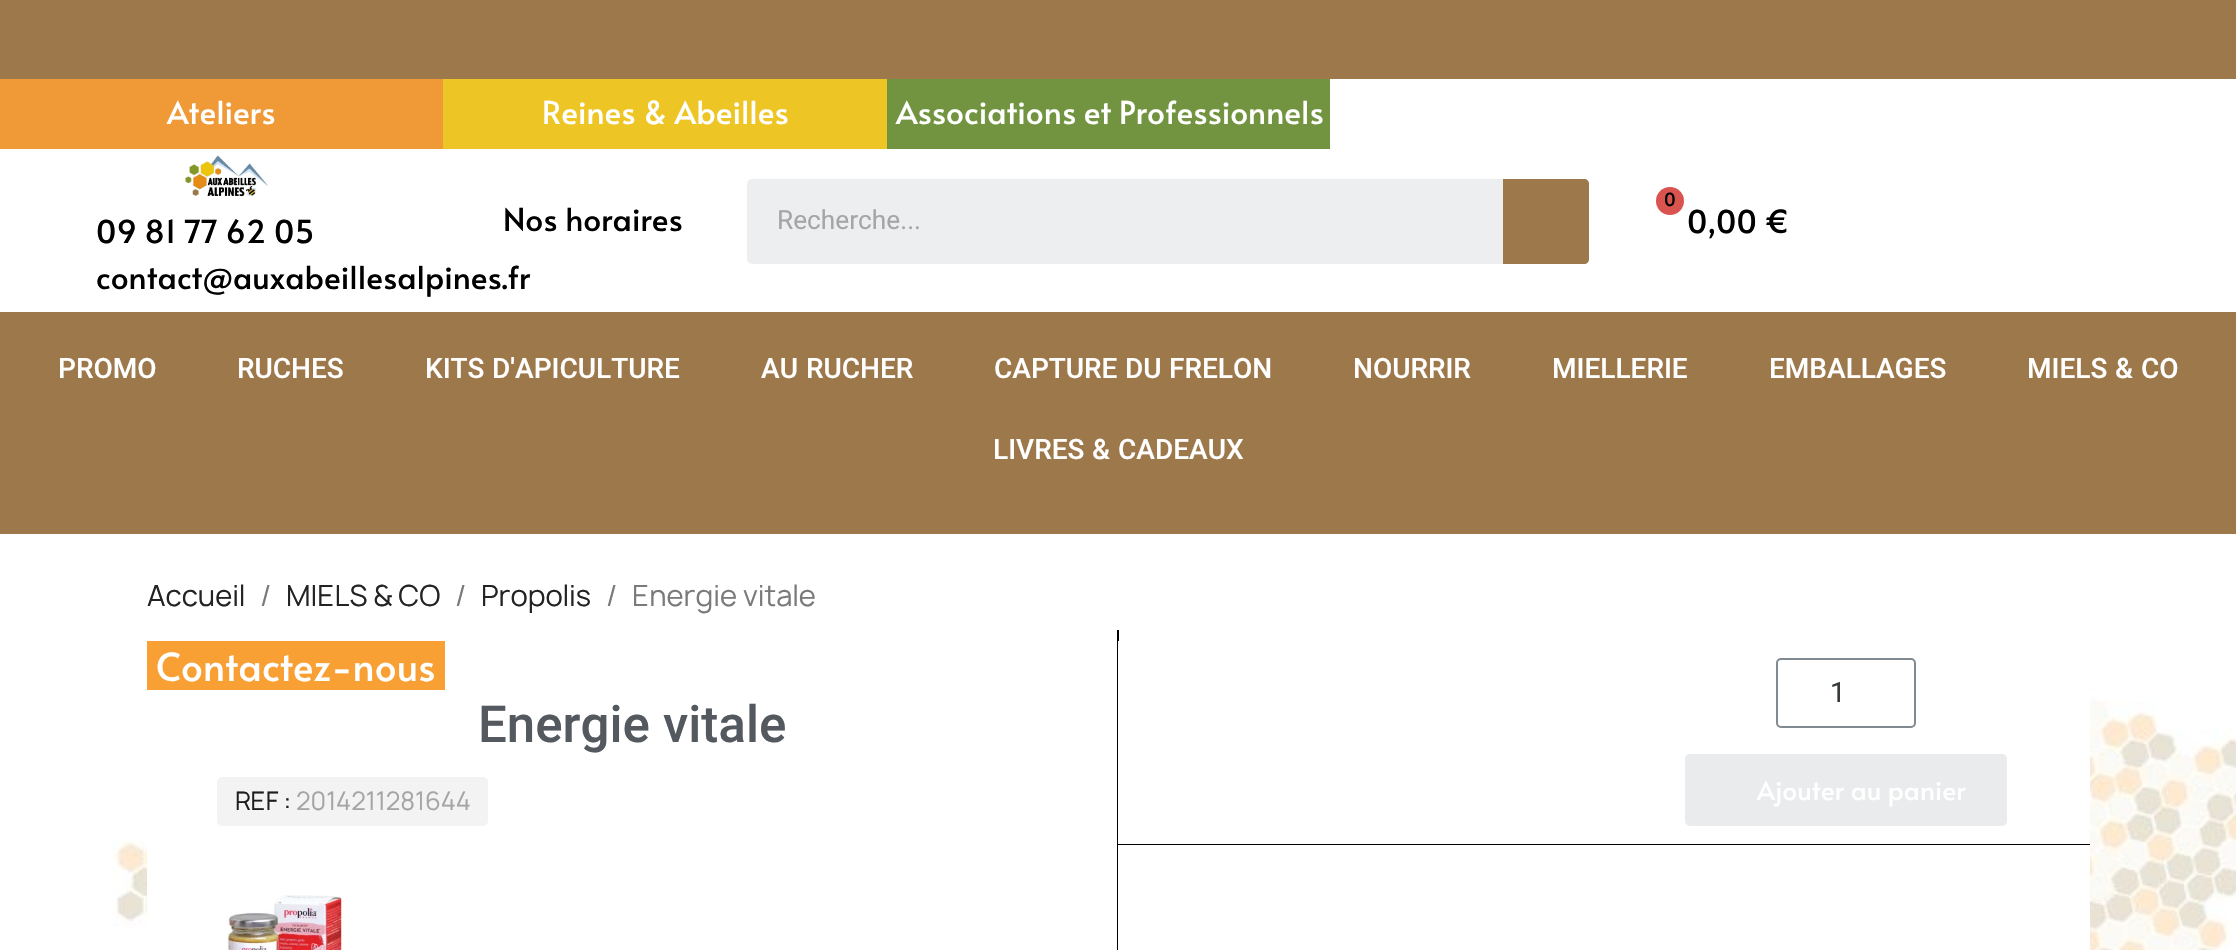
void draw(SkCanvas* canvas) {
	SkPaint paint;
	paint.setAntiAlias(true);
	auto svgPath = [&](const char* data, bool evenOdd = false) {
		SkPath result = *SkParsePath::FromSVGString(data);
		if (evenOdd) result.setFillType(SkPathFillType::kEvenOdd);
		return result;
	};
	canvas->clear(0xffffffff);
	paint.setColor(0xff9c784b);
	canvas->drawRect(SkRect::MakeXYWH(0, 0, 2236, 79), paint);
	paint.setColor(0xffef9a36);
	canvas->drawRect(SkRect::MakeXYWH(0, 79, 443, 70), paint);
	SkFont f1(fontMgr->matchFamilyStyle("Alata", SkFontStyle::Normal()), 31.5);
	f1.setSubpixel(true);
	paint.setColor(0xffffffff);
	canvas->drawString("Ateliers", 167, 124, f1, paint);
	paint.setColor(0xffedc525);
	canvas->drawRect(SkRect::MakeXYWH(443, 79, 444, 70), paint);
	paint.setColor(0xffffffff);
	canvas->drawString("Reines & Abeilles", 542, 124, f1, paint);
	paint.setColor(0xff729440);
	canvas->drawRect(SkRect::MakeXYWH(887, 79, 443, 70), paint);
	paint.setColor(0xffffffff);
	canvas->drawString("Associations et Professionnels", 896, 124, f1, paint);
	canvas->drawImageRect(SkImages::DeferredFromEncodedData(SkData::MakeFromFileName("img1.png")), SkRect::MakeXYWH(185, 155, 83, 41), SkSamplingOptions());
	paint.setColor(0xff000000);
	canvas->drawString("09 81 77 62 05", 96, 243, f1, paint);
	canvas->drawString("contact@auxabeillesalpines.fr", 96, 289, f1, paint);
	canvas->drawString("Nos horaires", 503, 231, f1, paint);
	paint.setColor(0xffeceeef);
	canvas->drawRoundRect(SkRect::MakeXYWH(747, 179, 842, 85), 5, 5, paint);
	SkFont f2(fontMgr->matchFamilyStyle("Roboto", SkFontStyle::Normal()), 26.25);
	f2.setSubpixel(true);
	paint.setColor(0xffa5a5a5);
	canvas->drawString("Recherche...", 777, 229, f2, paint);
	paint.setColor(0xff9c784b);
	canvas->drawPath(svgPath("M1503 179H1584C1587 179 1589 181 1589 184V259C1589 262 1587 264 1584 264H1503Z"), paint);
	paint.setColor(0xffd9534f);
	canvas->drawCircle(1670, 201, 14, paint);
	SkFont f3(fontMgr->matchFamilyStyle("Alata", SkFontStyle::Normal()), 18);
	f3.setSubpixel(true);
	paint.setColor(0xff000000);
	canvas->drawString("0", 1664, 206, f3, paint);
	canvas->drawString("0,00 €", 1687, 233, f1, paint);
	paint.setColor(0xff9c784b);
	canvas->drawRect(SkRect::MakeXYWH(0, 312, 2236, 222), paint);
	SkFont f4(fontMgr->matchFamilyStyle("Roboto", SkFontStyle(500, SkFontStyle::kNormal_Width, SkFontStyle::kUpright_Slant)), 28);
	f4.setSubpixel(true);
	paint.setColor(0xffffffff);
	canvas->drawString("PROMO", 58, 378, f4, paint);
	canvas->drawString("RUCHES", 237, 378, f4, paint);
	canvas->drawString("KITS", 425, 378, f4, paint);
	canvas->drawString("D'APICULTURE", 492, 378, f4, paint);
	canvas->drawString("AU", 761, 378, f4, paint);
	canvas->drawString("RUCHER", 806, 378, f4, paint);
	canvas->drawString("CAPTURE", 994, 378, f4, paint);
	canvas->drawString("DU", 1125, 378, f4, paint);
	canvas->drawString("FRELON", 1169, 378, f4, paint);
	canvas->drawString("NOURRIR", 1353, 378, f4, paint);
	canvas->drawString("MIELLERIE", 1552, 378, f4, paint);
	canvas->drawString("EMBALLAGES", 1769, 378, f4, paint);
	canvas->drawString("MIELS", 2027, 378, f4, paint);
	canvas->drawString("&", 2115, 378, f4, paint);
	canvas->drawString("CO", 2141, 378, f4, paint);
	canvas->drawString("LIVRES", 993, 459, f4, paint);
	canvas->drawString("&", 1092, 459, f4, paint);
	canvas->drawString("CADEAUX", 1118, 459, f4, paint);
	canvas->drawImageRect(SkImages::DeferredFromEncodedData(SkData::MakeFromFileName("img2.png")), SkRect::MakeXYWH(0, 534, 2236, 416), SkSamplingOptions());
	SkFont f5(fontMgr->matchFamilyStyle("Manrope", SkFontStyle::Normal()), 28);
	f5.setSubpixel(true);
	paint.setColor(0xff232323);
	canvas->drawString("Accueil", 147, 606, f5, paint);
	paint.setColor(0xff7a7a7a);
	canvas->drawString("/", 260, 606, f5, paint);
	paint.setColor(0xff232323);
	canvas->drawString("MIELS & CO", 286, 606, f5, paint);
	paint.setColor(0xff7a7a7a);
	canvas->drawString("/", 455, 606, f5, paint);
	paint.setColor(0xff232323);
	canvas->drawString("Propolis", 481, 606, f5, paint);
	paint.setColor(0xff7a7a7a);
	canvas->drawString("/", 606, 606, f5, paint);
	canvas->drawString("Energie vitale", 632, 606, f5, paint);
	paint.setColor(0xffffffff);
	canvas->drawRect(SkRect::MakeXYWH(147, 645, 216, 305), paint);
	paint.setColor(0xfff8a034);
	canvas->drawRect(SkRect::MakeXYWH(147, 641, 298, 49), paint);
	SkFont f6(fontMgr->matchFamilyStyle("Alata", SkFontStyle::Normal()), 38.5);
	f6.setSubpixel(true);
	paint.setColor(0xffffffff);
	canvas->drawString("Contactez-nous", 156, 681, f6, paint);
	paint.setColor(0xff000000);
	canvas->drawRect(SkRect::MakeXYWH(1117, 630, 2, 320), paint);
	SkFont f7(fontMgr->matchFamilyStyle("Roboto", SkFontStyle(500, SkFontStyle::kNormal_Width, SkFontStyle::kUpright_Slant)), 51);
	f7.setSubpixel(true);
	paint.setColor(0xff54595f);
	canvas->drawString("Energie", 478, 742, f7, paint);
	canvas->drawString("vitale", 663, 742, f7, paint);
	paint.setColor(0xfff3f3f3);
	canvas->drawRoundRect(SkRect::MakeXYWH(217, 777, 271, 49), 5, 5, paint);
	SkFont f8(fontMgr->matchFamilyStyle("Manrope", SkFontStyle::Normal()), 24.5);
	f8.setSubpixel(true);
	paint.setColor(0xff1d1d1f);
	canvas->drawString("REF :", 235, 810, f8, paint);
	paint.setColor(0xffa5a5a5);
	canvas->drawString("2014211281644", 296, 810, f8, paint);
	canvas->drawImageRect(SkImages::DeferredFromEncodedData(SkData::MakeFromFileName("img3.png")), SkRect::MakeXYWH(227, 895, 115, 55), SkSamplingOptions());
	paint.setColor(0xffffffff);
	canvas->drawRect(SkRect::MakeXYWH(1118, 641, 972, 203), paint);
	paint.setColor(0xff000000);
	canvas->drawRect(SkRect::MakeXYWH(1118, 844, 972, 1), paint);
	paint.setStroke(true);
	paint.setStrokeWidth(2);
	paint.setColor(0xff818a91);
	canvas->drawRoundRect(SkRect::MakeXYWH(1777, 659, 138, 68), 4, 4, paint);
	SkFont f9(fontMgr->matchFamilyStyle("Roboto", SkFontStyle::Normal()), 28);
	f9.setSubpixel(true);
	paint.setStroke(false);
	paint.setColor(0xff373a3c);
	canvas->drawString("1", 1830, 702, f9, paint);
	paint.setColor(0xffe9ebec);
	canvas->drawRoundRect(SkRect::MakeXYWH(1685, 754, 322, 72), 5, 5, paint);
	SkFont f10(fontMgr->matchFamilyStyle("Alata", SkFontStyle::Normal()), 26.25);
	f10.setSubpixel(true);
	paint.setColor(0xffffffff);
	canvas->drawString("Ajouter au panier", 1757, 800, f10, paint);
	canvas->drawRect(SkRect::MakeXYWH(1118, 845, 972, 105), paint);
}
